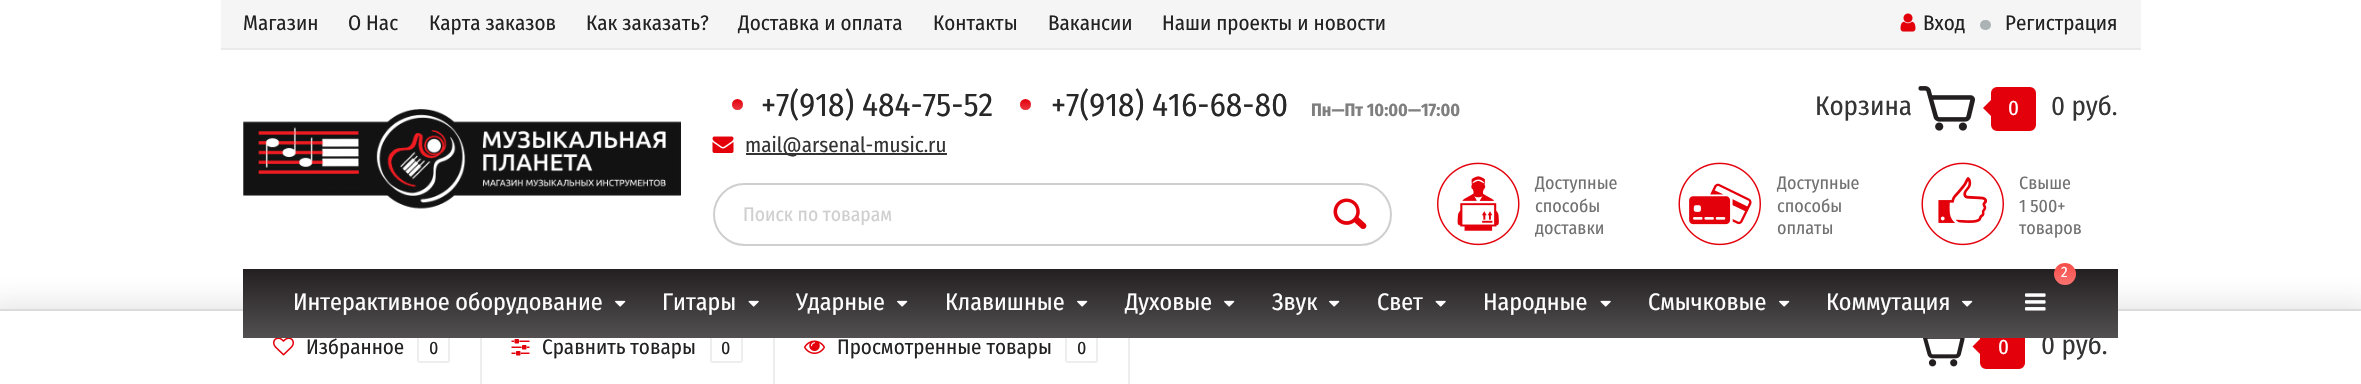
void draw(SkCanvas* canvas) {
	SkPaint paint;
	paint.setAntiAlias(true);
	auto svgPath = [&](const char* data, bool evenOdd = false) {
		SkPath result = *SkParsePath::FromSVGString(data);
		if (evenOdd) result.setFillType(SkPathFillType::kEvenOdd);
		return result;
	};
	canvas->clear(0xffffffff);
	paint.setColor(0xfff5f5f5);
	canvas->drawRect(SkRect::MakeXYWH(221, 0, 1920, 48), paint);
	paint.setColor(0xffeaeaea);
	canvas->drawRect(SkRect::MakeXYWH(221, 48, 1920, 2), paint);
	SkFont f1(fontMgr->matchFamilyStyle("Fira Sans Condensed", SkFontStyle::Normal()), 21);
	f1.setSubpixel(true);
	paint.setColor(0xff222222);
	canvas->drawString("Магазин", 243, 30, f1, paint);
	canvas->drawString("О Нас", 348, 30, f1, paint);
	canvas->drawString("Карта заказов", 429, 30, f1, paint);
	canvas->drawString("Как заказать?", 586, 30, f1, paint);
	canvas->drawString("Доставка и оплата", 738, 30, f1, paint);
	canvas->drawString("Контакты", 933, 30, f1, paint);
	canvas->drawString("Вакансии", 1048, 30, f1, paint);
	canvas->drawString("Наши проекты и новости", 1162, 30, f1, paint);
	canvas->drawImageRect(SkImages::DeferredFromEncodedData(SkData::MakeFromFileName("img1.png")), SkRect::MakeXYWH(1900, 13, 16, 19), SkSamplingOptions());
	canvas->drawString("Вход", 1923, 30, f1, paint);
	paint.setColor(0xffacb3b4);
	canvas->drawRoundRect(SkRect::MakeXYWH(1980, 20, 11, 10), 5, 5, paint);
	paint.setColor(0xff222222);
	canvas->drawString("Регистрация", 2005, 30, f1, paint);
	canvas->drawImageRect(SkImages::DeferredFromEncodedData(SkData::MakeFromFileName("img2.png")), SkRect::MakeXYWH(243, 109, 438, 100), SkSamplingOptions());
	paint.setColor(0xffe3000b);
	canvas->drawCircle(737.5, 104.5, 5.5, paint);
	{
		const SkColor colors[] = {0x00ffffff, 0x38ffffff};
		const float stops[] = {0, 1};
		const SkPoint ends[] = {{737, 99}, {737, 110}};
		paint.setShader(SkGradientShader::MakeLinear(ends, colors, stops, 2, SkTileMode::kClamp));
		paint.setAlpha(255);
	}
	canvas->drawCircle(737.5, 104.5, 5.5, paint);
	SkFont f2(fontMgr->matchFamilyStyle("Fira Sans Condensed", SkFontStyle::Normal()), 33);
	f2.setSubpixel(true);
	paint.setShader(nullptr);
	paint.setColor(0xff282828);
	canvas->drawString("+7(918) 484-75-52", 761, 116, f2, paint);
	paint.setColor(0xffe3000b);
	canvas->drawCircle(1025.5, 104.5, 5.5, paint);
	{
		const SkColor colors[] = {0x00ffffff, 0x38ffffff};
		const float stops[] = {0, 1};
		const SkPoint ends[] = {{1025, 99}, {1025, 110}};
		paint.setShader(SkGradientShader::MakeLinear(ends, colors, stops, 2, SkTileMode::kClamp));
		paint.setAlpha(255);
	}
	canvas->drawCircle(1025.5, 104.5, 5.5, paint);
	paint.setShader(nullptr);
	paint.setColor(0xff282828);
	canvas->drawString("+7(918) 416-68-80", 1051, 116, f2, paint);
	SkFont f3(fontMgr->matchFamilyStyle("Fira Sans Condensed", SkFontStyle::Bold()), 18);
	f3.setSubpixel(true);
	paint.setColor(0xff7f7f7f);
	canvas->drawString("Пн—Пт 10:00—17:00", 1311, 116, f3, paint);
	canvas->drawImageRect(SkImages::DeferredFromEncodedData(SkData::MakeFromFileName("img3.png")), SkRect::MakeXYWH(712, 136, 22, 17), SkSamplingOptions());
	paint.setColor(0xff343434);
	canvas->drawRect(SkRect::MakeXYWH(746, 153, 201, 2), paint);
	canvas->drawString("mail@arsenal-music.ru", 745, 152, f1, paint);
	SkFont f4(fontMgr->matchFamilyStyle("Fira Sans Condensed", SkFontStyle::Normal()), 27);
	f4.setSubpixel(true);
	canvas->drawString("Корзина", 1815, 115, f4, paint);
	canvas->drawImageRect(SkImages::DeferredFromEncodedData(SkData::MakeFromFileName("img4.png")), SkRect::MakeXYWH(1918, 86, 57, 45), SkSamplingOptions());
	paint.setColor(0xffe3000b);
	canvas->drawRoundRect(SkRect::MakeXYWH(1994, 90, 39, 38), 3, 3, paint);
	paint.setStroke(true);
	paint.setStrokeWidth(6);
	canvas->drawRoundRect(SkRect::MakeXYWH(1994, 90, 39, 38), 3, 3, paint);
	paint.setStroke(false);
	canvas->drawPath(svgPath("M1996.5 94.5V121.5L1983 108Z"), paint);
	paint.setColor(0xffffffff);
	canvas->drawString("0", 2008, 115, f1, paint);
	paint.setColor(0xff343434);
	canvas->drawString("0 руб.", 2051, 115, f4, paint);
	paint.setStroke(true);
	paint.setStrokeWidth(2);
	paint.setColor(0xffd0cfcf);
	canvas->drawRoundRect(SkRect::MakeXYWH(714, 184, 677, 61), 30.5, 30.5, paint);
	SkFont f5(fontMgr->matchFamilyStyle("Fira Sans Condensed", SkFontStyle::Normal()), 19.5);
	f5.setSubpixel(true);
	paint.setStroke(false);
	paint.setColor(0xffcfcfcf);
	canvas->drawString("Поиск по товарам", 743, 221, f5, paint);
	canvas->drawImageRect(SkImages::DeferredFromEncodedData(SkData::MakeFromFileName("img5.png")), SkRect::MakeXYWH(1333, 198, 34, 31), SkSamplingOptions());
	canvas->drawImageRect(SkImages::DeferredFromEncodedData(SkData::MakeFromFileName("img6.png")), SkRect::MakeXYWH(1437, 162, 83, 84), SkSamplingOptions());
	SkFont f6(fontMgr->matchFamilyStyle("Fira Sans Condensed", SkFontStyle::Normal()), 18);
	f6.setSubpixel(true);
	paint.setColor(0xff717171);
	canvas->drawString("Доступные", 1535, 189, f6, paint);
	canvas->drawString("способы", 1535, 212, f6, paint);
	canvas->drawString("доставки", 1535, 234, f6, paint);
	canvas->drawImageRect(SkImages::DeferredFromEncodedData(SkData::MakeFromFileName("img7.png")), SkRect::MakeXYWH(1678, 162, 83, 84), SkSamplingOptions());
	canvas->drawString("Доступные", 1777, 189, f6, paint);
	canvas->drawString("способы", 1777, 212, f6, paint);
	canvas->drawString("оплаты", 1777, 234, f6, paint);
	canvas->drawImageRect(SkImages::DeferredFromEncodedData(SkData::MakeFromFileName("img8.png")), SkRect::MakeXYWH(1921, 162, 83, 84), SkSamplingOptions());
	canvas->drawString("Свыше", 2019, 189, f6, paint);
	canvas->drawString("1 500+", 2019, 212, f6, paint);
	canvas->drawString("товаров", 2019, 234, f6, paint);
	paint.setColor(0x26323232);
	paint.setMaskFilter(SkMaskFilter::MakeBlur(kNormal_SkBlurStyle, 15));
	canvas->drawRect(SkRect::MakeXYWH(-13, 306, 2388, 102), paint);
	paint.setMaskFilter(nullptr);
	paint.setColor(0xffffffff);
	canvas->drawRect(SkRect::MakeXYWH(0, 311, 2361, 73), paint);
	paint.setColor(0xffdbdbdb);
	canvas->drawRect(SkRect::MakeXYWH(0, 309, 2361, 2), paint);
	paint.setStroke(true);
	paint.setColor(0xffeeeeee);
	canvas->drawRoundRect(SkRect::MakeXYWH(418, 334, 31, 28), 2, 2, paint);
	canvas->drawRoundRect(SkRect::MakeXYWH(711, 334, 31, 28), 2, 2, paint);
	canvas->drawRoundRect(SkRect::MakeXYWH(1066, 334, 31, 28), 2, 2, paint);
	paint.setStroke(false);
	paint.setColor(0xffe3000b);
	canvas->drawRoundRect(SkRect::MakeXYWH(1983, 329, 39, 37), 3, 3, paint);
	paint.setStroke(true);
	paint.setStrokeWidth(6);
	canvas->drawRoundRect(SkRect::MakeXYWH(1983, 329, 39, 37), 3, 3, paint);
	paint.setStroke(false);
	canvas->drawPath(svgPath("M1986 333V360L1972.5 346.5Z"), paint);
	paint.setColor(0xff343434);
	canvas->drawString("0 руб.", 2041, 354, f4, paint);
	{
		const SkColor colors[] = {0xff231f20, 0xff535051};
		const float stops[] = {0, 1};
		const SkPoint ends[] = {{1181, 268}, {1181, 338}};
		paint.setShader(SkGradientShader::MakeLinear(ends, colors, stops, 2, SkTileMode::kClamp));
		paint.setAlpha(255);
	}
	canvas->drawRect(SkRect::MakeXYWH(243, 269, 1875, 69), paint);
	paint.setShader(nullptr);
	paint.setColor(0xfff84c48);
	canvas->drawCircle(2065, 274, 11, paint);
	{
		const SkColor colors[] = {0x00ffffff, 0x38ffffff};
		const float stops[] = {0, 1};
		const SkPoint ends[] = {{2065, 263}, {2065, 285}};
		paint.setShader(SkGradientShader::MakeLinear(ends, colors, stops, 2, SkTileMode::kClamp));
		paint.setAlpha(255);
	}
	canvas->drawCircle(2065, 274, 11, paint);
	SkFont f7(fontMgr->matchFamilyStyle("Fira Sans Condensed", SkFontStyle::Normal()), 15);
	f7.setSubpixel(true);
	paint.setShader(nullptr);
	paint.setColor(0xffffffff);
	canvas->drawString("2", 2061, 277, f7, paint);
	canvas->drawImageRect(SkImages::DeferredFromEncodedData(SkData::MakeFromFileName("img9.png")), SkRect::MakeXYWH(2025, 293, 21, 18), SkSamplingOptions());
	SkFont f8(fontMgr->matchFamilyStyle("Fira Sans Condensed", SkFontStyle::Normal()), 24);
	f8.setSubpixel(true);
	canvas->drawString("Интерактивное оборудование", 293, 310, f8, paint);
	canvas->drawImageRect(SkImages::DeferredFromEncodedData(SkData::MakeFromFileName("img10.png")), SkRect::MakeXYWH(615, 300, 11, 7), SkSamplingOptions());
	canvas->drawString("Гитары", 662, 310, f8, paint);
	canvas->drawImageRect(SkImages::DeferredFromEncodedData(SkData::MakeFromFileName("img11.png")), SkRect::MakeXYWH(748, 300, 11, 7), SkSamplingOptions());
	canvas->drawString("Ударные", 796, 310, f8, paint);
	canvas->drawImageRect(SkImages::DeferredFromEncodedData(SkData::MakeFromFileName("img10.png")), SkRect::MakeXYWH(897, 300, 11, 7), SkSamplingOptions());
	canvas->drawString("Клавишные", 945, 310, f8, paint);
	canvas->drawImageRect(SkImages::DeferredFromEncodedData(SkData::MakeFromFileName("img10.png")), SkRect::MakeXYWH(1077, 300, 11, 7), SkSamplingOptions());
	canvas->drawString("Духовые", 1125, 310, f8, paint);
	canvas->drawImageRect(SkImages::DeferredFromEncodedData(SkData::MakeFromFileName("img10.png")), SkRect::MakeXYWH(1224, 300, 11, 7), SkSamplingOptions());
	canvas->drawString("Звук", 1272, 310, f8, paint);
	canvas->drawImageRect(SkImages::DeferredFromEncodedData(SkData::MakeFromFileName("img10.png")), SkRect::MakeXYWH(1329, 300, 11, 7), SkSamplingOptions());
	canvas->drawString("Свет", 1377, 310, f8, paint);
	canvas->drawImageRect(SkImages::DeferredFromEncodedData(SkData::MakeFromFileName("img11.png")), SkRect::MakeXYWH(1435, 300, 11, 7), SkSamplingOptions());
	canvas->drawString("Народные", 1483, 310, f8, paint);
	canvas->drawImageRect(SkImages::DeferredFromEncodedData(SkData::MakeFromFileName("img11.png")), SkRect::MakeXYWH(1600, 300, 11, 7), SkSamplingOptions());
	canvas->drawString("Смычковые", 1648, 310, f8, paint);
	canvas->drawImageRect(SkImages::DeferredFromEncodedData(SkData::MakeFromFileName("img10.png")), SkRect::MakeXYWH(1779, 300, 11, 7), SkSamplingOptions());
	canvas->drawString("Коммутация", 1826, 310, f8, paint);
	canvas->drawImageRect(SkImages::DeferredFromEncodedData(SkData::MakeFromFileName("img10.png")), SkRect::MakeXYWH(1962, 300, 11, 7), SkSamplingOptions());
	paint.setColor(0xffededed);
	canvas->drawRect(SkRect::MakeXYWH(480, 338, 2, 46), paint);
	canvas->drawImageRect(SkImages::DeferredFromEncodedData(SkData::MakeFromFileName("img12.png")), SkRect::MakeXYWH(273, 338, 21, 18), SkSamplingOptions());
	paint.setColor(0xff222222);
	canvas->drawString("Избранное", 306, 354, f1, paint);
	canvas->drawString("0", 429, 354, f6, paint);
	paint.setColor(0xffededed);
	canvas->drawRect(SkRect::MakeXYWH(773, 338, 2, 46), paint);
	canvas->drawImageRect(SkImages::DeferredFromEncodedData(SkData::MakeFromFileName("img13.png")), SkRect::MakeXYWH(511, 339, 19, 17), SkSamplingOptions());
	paint.setColor(0xff222222);
	canvas->drawString("Сравнить товары", 542, 354, f1, paint);
	canvas->drawString("0", 721, 354, f6, paint);
	paint.setColor(0xffededed);
	canvas->drawRect(SkRect::MakeXYWH(1128, 338, 2, 46), paint);
	canvas->drawImageRect(SkImages::DeferredFromEncodedData(SkData::MakeFromFileName("img14.png")), SkRect::MakeXYWH(804, 340, 21, 14), SkSamplingOptions());
	paint.setColor(0xff222222);
	canvas->drawString("Просмотренные товары", 837, 354, f1, paint);
	canvas->drawString("0", 1077, 354, f6, paint);
	canvas->drawImageRect(SkImages::DeferredFromEncodedData(SkData::MakeFromFileName("img15.png")), SkRect::MakeXYWH(1923, 338, 42, 29), SkSamplingOptions());
	paint.setColor(0xffffffff);
	canvas->drawString("0", 1998, 354, f1, paint);
}
